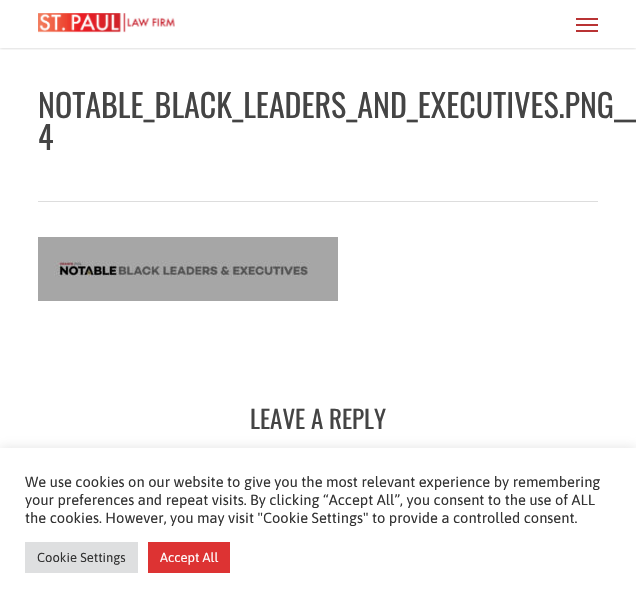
void draw(SkCanvas* canvas) {
	SkPaint paint;
	paint.setAntiAlias(true);
	canvas->clear(0xffffffff);
	canvas->save();
	canvas->clipRect(SkRect::MakeXYWH(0, 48, 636, 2));
	paint.setColor(0x38000000);
	paint.setMaskFilter(SkMaskFilter::MakeBlur(kNormal_SkBlurStyle, 1.5));
	canvas->drawRect(SkRect::MakeXYWH(0, 0, 636, 48), paint);
	paint.setMaskFilter(nullptr);
	canvas->restore();
	canvas->drawImageRect(SkImages::DeferredFromEncodedData(SkData::MakeFromFileName("img1.png")), SkRect::MakeXYWH(38, 13, 137, 20), SkSamplingOptions());
	paint.setColor(0xffb93334);
	canvas->drawRect(SkRect::MakeXYWH(576, 18, 22, 2), paint);
	canvas->drawRect(SkRect::MakeXYWH(576, 30, 22, 2), paint);
	canvas->drawRect(SkRect::MakeXYWH(576, 24, 22, 2), paint);
	paint.setColor(0xffdddddd);
	canvas->drawRect(SkRect::MakeXYWH(38, 201, 560, 1), paint);
	SkFont f1(fontMgr->matchFamilyStyle("Oswald", SkFontStyle::Normal()), 32);
	f1.setSubpixel(true);
	paint.setColor(0xff444444);
	canvas->drawString("NOTABLE_BLACK_LEADERS_AND_EXECUTIVES.PNG__", 38, 118, f1, paint);
	canvas->drawString("4", 38, 150, f1, paint);
	canvas->drawImageRect(SkImages::DeferredFromEncodedData(SkData::MakeFromFileName("img2.png")), SkRect::MakeXYWH(38, 237, 300, 64), SkSamplingOptions());
	SkFont f2(fontMgr->matchFamilyStyle("Oswald", SkFontStyle::Normal()), 25);
	f2.setSubpixel(true);
	canvas->drawString("LEAVE A REPLY", 250, 429, f2, paint);
	paint.setColor(0x4dacabab);
	paint.setMaskFilter(SkMaskFilter::MakeBlur(kNormal_SkBlurStyle, 5));
	canvas->drawRect(SkRect::MakeXYWH(0, 447, 636, 155), paint);
	paint.setMaskFilter(nullptr);
	paint.setColor(0xffffffff);
	canvas->drawRect(SkRect::MakeXYWH(0, 448, 636, 155), paint);
	SkFont f3(fontMgr->matchFamilyStyle("Asap", SkFontStyle::Normal()), 14.65);
	f3.setSubpixel(true);
	paint.setColor(0xff333333);
	canvas->drawString("We use cookies on our website to give you the most relevant experience by remembering", 25, 487, f3, paint);
	canvas->drawString("your preferences and repeat visits. By clicking “Accept All”, you consent to the use of ALL", 25, 505, f3, paint);
	canvas->drawString("the cookies. However, you may visit \"Cookie Settings\" to provide a controlled consent.", 25, 523, f3, paint);
	paint.setColor(0xffdedfe0);
	canvas->drawRect(SkRect::MakeXYWH(25, 542, 113, 31), paint);
	SkFont f4(fontMgr->matchFamilyStyle("Asap", SkFontStyle::Normal()), 13);
	f4.setSubpixel(true);
	paint.setColor(0xff333333);
	canvas->drawString("Cookie Settings", 37, 562, f4, paint);
	paint.setColor(0xffdd3333);
	canvas->drawRect(SkRect::MakeXYWH(148, 542, 82, 31), paint);
	paint.setColor(0xffffffff);
	canvas->drawString("Accept All", 160, 562, f4, paint);
}
